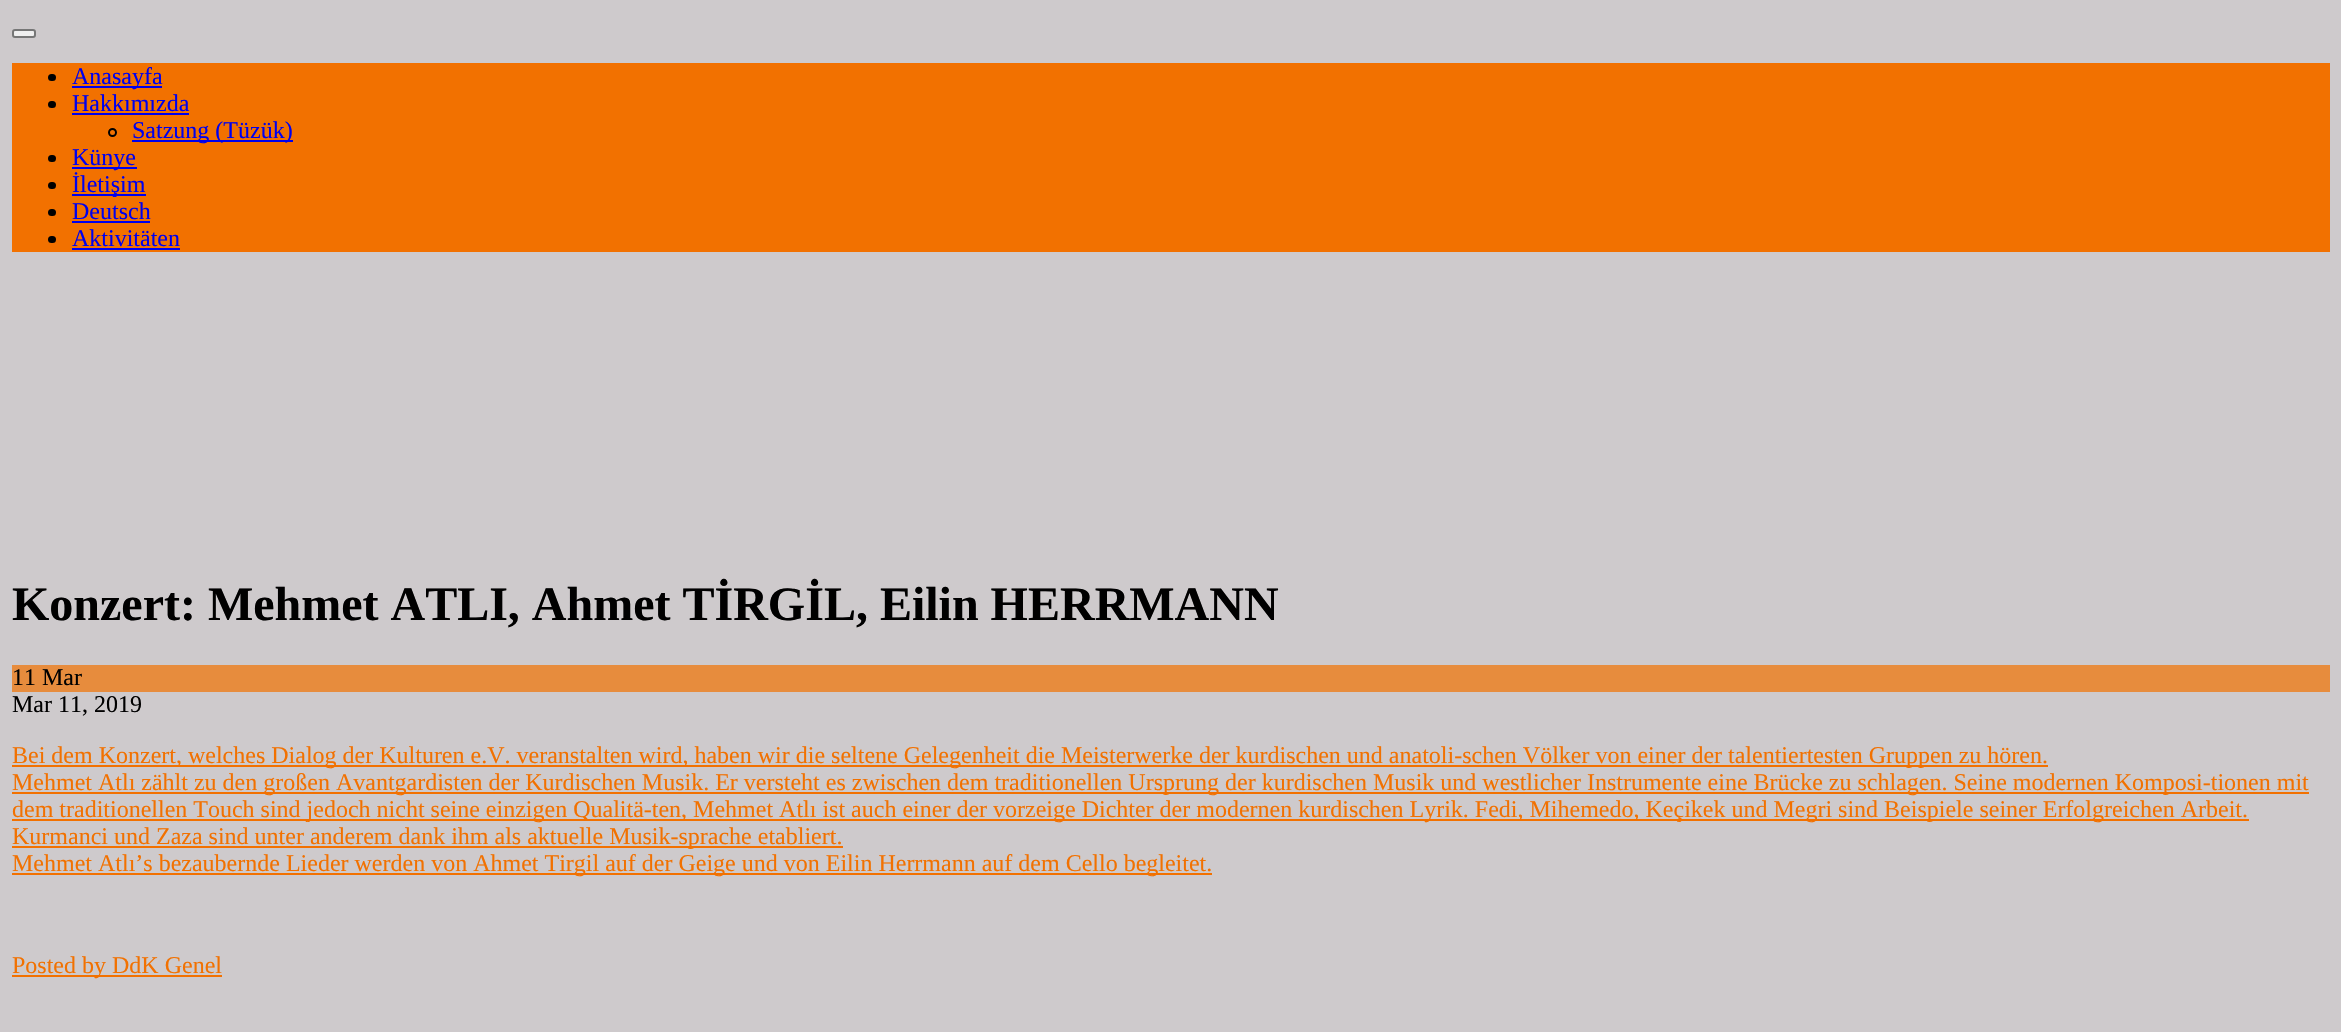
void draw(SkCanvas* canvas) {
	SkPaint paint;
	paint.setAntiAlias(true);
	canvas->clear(0xffcecacc);
	paint.setColor(0xffefefef);
	canvas->drawRoundRect(SkRect::MakeXYWH(13, 30, 22, 7), 2, 2, paint);
	paint.setStroke(true);
	paint.setStrokeWidth(2);
	paint.setColor(0xff767676);
	canvas->drawRoundRect(SkRect::MakeXYWH(13, 30, 22, 7), 2, 2, paint);
	paint.setStroke(false);
	paint.setColor(0xfff27100);
	canvas->drawRect(SkRect::MakeXYWH(12, 63, 2318, 189), paint);
	paint.setColor(0xff000000);
	canvas->drawRoundRect(SkRect::MakeXYWH(48, 74, 8, 7), 3.5, 3.5, paint);
	paint.setColor(0xff0000ee);
	canvas->drawRect(SkRect::MakeXYWH(72, 86, 90, 2), paint);
	SkFont f1(fontMgr->matchFamilyStyle("Liberation Serif", SkFontStyle::Normal()), 24);
	f1.setSubpixel(true);
	canvas->drawString("Anasayfa", 72, 84, f1, paint);
	paint.setColor(0xff000000);
	canvas->drawRoundRect(SkRect::MakeXYWH(48, 101, 8, 7), 3.5, 3.5, paint);
	paint.setColor(0xff0000ee);
	canvas->drawString("Hakkımızda", 72, 111, f1, paint);
	canvas->drawRect(SkRect::MakeXYWH(72, 113, 117, 2), paint);
	paint.setStroke(true);
	paint.setColor(0xff000000);
	canvas->drawCircle(112.5, 132.5, 3.5, paint);
	paint.setStroke(false);
	paint.setColor(0xff0000ee);
	canvas->drawRect(SkRect::MakeXYWH(132, 140, 161, 2), paint);
	canvas->drawString("Satzung (Tüzük)", 132, 138, f1, paint);
	paint.setColor(0xff000000);
	canvas->drawRoundRect(SkRect::MakeXYWH(48, 155, 8, 7), 3.5, 3.5, paint);
	paint.setColor(0xff0000ee);
	canvas->drawRect(SkRect::MakeXYWH(72, 167, 65, 2), paint);
	canvas->drawString("Künye", 72, 165, f1, paint);
	paint.setColor(0xff000000);
	canvas->drawRoundRect(SkRect::MakeXYWH(48, 182, 8, 7), 3.5, 3.5, paint);
	paint.setColor(0xff0000ee);
	canvas->drawRect(SkRect::MakeXYWH(72, 194, 74, 2), paint);
	canvas->drawString("İletişim", 72, 192, f1, paint);
	paint.setColor(0xff000000);
	canvas->drawRoundRect(SkRect::MakeXYWH(48, 209, 8, 7), 3.5, 3.5, paint);
	paint.setColor(0xff0000ee);
	canvas->drawString("Deutsch", 72, 219, f1, paint);
	canvas->drawRect(SkRect::MakeXYWH(72, 221, 78, 2), paint);
	paint.setColor(0xff000000);
	canvas->drawRoundRect(SkRect::MakeXYWH(48, 236, 8, 7), 3.5, 3.5, paint);
	paint.setColor(0xff0000ee);
	canvas->drawString("Aktivitäten", 72, 246, f1, paint);
	canvas->drawRect(SkRect::MakeXYWH(72, 248, 108, 2), paint);
	SkFont f2(fontMgr->matchFamilyStyle("Liberation Serif", SkFontStyle::Bold()), 48);
	f2.setSubpixel(true);
	paint.setColor(0xff000000);
	canvas->drawString("Konzert: Mehmet ATLI, Ahmet TİRGİL, Eilin HERRMANN", 12, 620, f2, paint);
	paint.setColor(0xffe78c3d);
	canvas->drawRect(SkRect::MakeXYWH(12, 665, 2318, 27), paint);
	paint.setColor(0xff000000);
	canvas->drawString("11 Mar", 12, 685, f1, paint);
	canvas->drawString("Mar 11, 2019", 12, 712, f1, paint);
	paint.setColor(0xfff27100);
	canvas->drawRect(SkRect::MakeXYWH(12, 765, 2036, 2), paint);
	canvas->drawString("Bei dem Konzert, welches Dialog der Kulturen e.V. veranstalten wird, haben wir die seltene Gelegenheit die Meisterwerke der kurdischen und anatoli-schen Völker von einer der talentiertesten Gruppen zu hören.", 12, 763, f1, paint);
	canvas->drawRect(SkRect::MakeXYWH(12, 792, 2297, 2), paint);
	canvas->drawString("Mehmet Atlı zählt zu den großen Avantgardisten der Kurdischen Musik. Er versteht es zwischen dem traditionellen Ursprung der kurdischen Musik und westlicher Instrumente eine Brücke zu schlagen. Seine modernen Komposi-tionen mit", 12, 790, f1, paint);
	canvas->drawRect(SkRect::MakeXYWH(12, 819, 2237, 2), paint);
	canvas->drawString("dem traditionellen Touch sind jedoch nicht seine einzigen Qualitä-ten, Mehmet Atlı ist auch einer der vorzeige Dichter der modernen kurdischen Lyrik. Fedi, Mihemedo, Keçikek und Megri sind Beispiele seiner Erfolgreichen Arbeit.", 12, 817, f1, paint);
	canvas->drawRect(SkRect::MakeXYWH(12, 846, 831, 2), paint);
	canvas->drawString("Kurmanci und Zaza sind unter anderem dank ihm als aktuelle Musik-sprache etabliert.", 12, 844, f1, paint);
	canvas->drawRect(SkRect::MakeXYWH(12, 873, 1200, 2), paint);
	canvas->drawString("Mehmet Atlı’s bezaubernde Lieder werden von Ahmet Tirgil auf der Geige und von Eilin Herrmann auf dem Cello begleitet.", 12, 871, f1, paint);
	canvas->drawRect(SkRect::MakeXYWH(12, 975, 210, 2), paint);
	canvas->drawString("Posted by DdK Genel", 12, 973, f1, paint);
}
